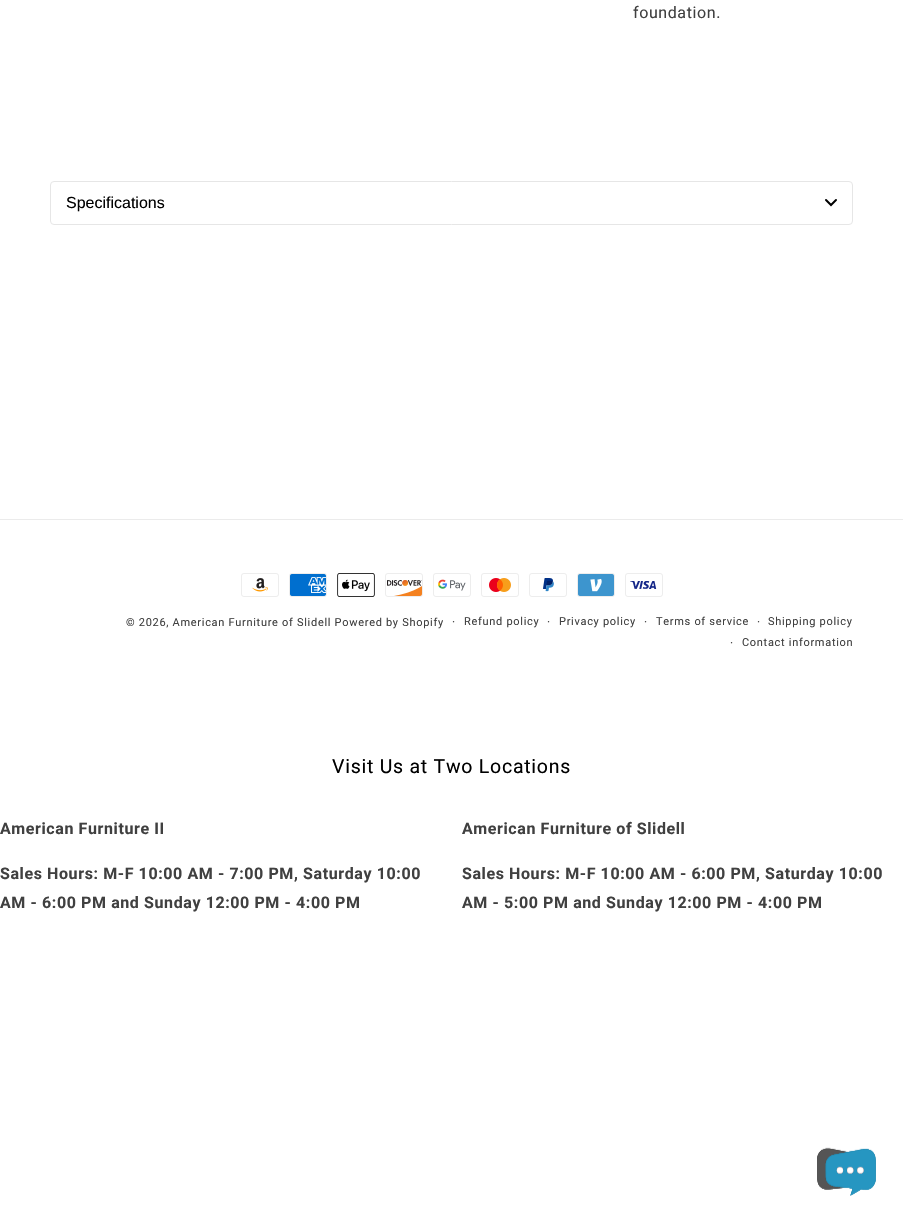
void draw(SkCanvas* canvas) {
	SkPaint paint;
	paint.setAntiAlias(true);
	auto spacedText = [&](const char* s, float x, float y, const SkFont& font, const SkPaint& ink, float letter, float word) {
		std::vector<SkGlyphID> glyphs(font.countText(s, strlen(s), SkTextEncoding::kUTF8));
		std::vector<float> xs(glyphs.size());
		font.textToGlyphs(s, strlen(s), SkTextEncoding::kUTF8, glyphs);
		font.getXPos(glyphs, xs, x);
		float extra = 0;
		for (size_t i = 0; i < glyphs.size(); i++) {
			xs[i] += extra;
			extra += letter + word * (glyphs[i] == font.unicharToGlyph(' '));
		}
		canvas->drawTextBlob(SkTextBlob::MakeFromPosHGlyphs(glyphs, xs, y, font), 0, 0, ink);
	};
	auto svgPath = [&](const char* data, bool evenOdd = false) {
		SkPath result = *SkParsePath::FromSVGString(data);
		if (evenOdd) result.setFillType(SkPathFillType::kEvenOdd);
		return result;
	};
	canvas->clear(0xffffffff);
	SkFont f1(fontMgr->matchFamilyStyle("Roboto", SkFontStyle::Normal()), 16);
	f1.setSubpixel(true);
	paint.setColor(0xff404040);
	spacedText("foundation.", 633, 18, f1, paint, 0.6, 0);
	paint.setStroke(true);
	paint.setStrokeWidth(1);
	paint.setColor(0xffe6e6e6);
	canvas->drawRoundRect(SkRect::MakeXYWH(50.5, 181.5, 802, 43), 3.5, 3.5, paint);
	SkFont f2(fontMgr->matchFamilyStyle("Liberation Sans", SkFontStyle::Normal()), 16);
	f2.setSubpixel(true);
	paint.setStroke(false);
	paint.setColor(0xff000000);
	canvas->drawString("Specifications", 66, 208, f2, paint);
	paint.setStroke(true);
	paint.setStrokeWidth(2);
	paint.setStrokeCap(SkPaint::kRound_Cap);
	canvas->drawPath(svgPath("M826 200L831 205L836 200"), paint);
	paint.setStroke(false);
	paint.setColor(0xffebebeb);
	canvas->drawRect(SkRect::MakeXYWH(0, 519, 903, 1), paint);
	canvas->drawImageRect(SkImages::DeferredFromEncodedData(SkData::MakeFromFileName("img1.png")), SkRect::MakeXYWH(241, 573, 38, 24), SkSamplingOptions());
	canvas->drawImageRect(SkImages::DeferredFromEncodedData(SkData::MakeFromFileName("img2.png")), SkRect::MakeXYWH(289, 573, 38, 24), SkSamplingOptions());
	canvas->drawImageRect(SkImages::DeferredFromEncodedData(SkData::MakeFromFileName("img3.png")), SkRect::MakeXYWH(337, 573, 38, 24), SkSamplingOptions());
	canvas->drawImageRect(SkImages::DeferredFromEncodedData(SkData::MakeFromFileName("img4.png")), SkRect::MakeXYWH(385, 573, 38, 24), SkSamplingOptions());
	canvas->drawImageRect(SkImages::DeferredFromEncodedData(SkData::MakeFromFileName("img5.png")), SkRect::MakeXYWH(433, 573, 38, 24), SkSamplingOptions());
	canvas->drawImageRect(SkImages::DeferredFromEncodedData(SkData::MakeFromFileName("img6.png")), SkRect::MakeXYWH(481, 573, 38, 24), SkSamplingOptions());
	canvas->drawImageRect(SkImages::DeferredFromEncodedData(SkData::MakeFromFileName("img7.png")), SkRect::MakeXYWH(529, 573, 38, 24), SkSamplingOptions());
	canvas->drawImageRect(SkImages::DeferredFromEncodedData(SkData::MakeFromFileName("img8.png")), SkRect::MakeXYWH(577, 573, 38, 24), SkSamplingOptions());
	canvas->drawImageRect(SkImages::DeferredFromEncodedData(SkData::MakeFromFileName("img9.png")), SkRect::MakeXYWH(625, 573, 38, 24), SkSamplingOptions());
	SkFont f3(fontMgr->matchFamilyStyle("Roboto", SkFontStyle::Normal()), 11);
	f3.setSubpixel(true);
	paint.setColor(0xff404040);
	spacedText("© 2026, American Furniture of Slidell Powered by Shopify", 126, 626, f3, paint, 0.7, 0);
	SkFont f4(fontMgr->matchFamilyStyle("Roboto", SkFontStyle::Normal()), 12);
	f4.setSubpixel(true);
	spacedText("·", 452, 626, f4, paint, 0.7, 0);
	spacedText("Refund policy", 464, 625, f3, paint, 0.7, 0);
	spacedText("·", 547, 626, f4, paint, 0.7, 0);
	spacedText("Privacy policy", 559, 625, f3, paint, 0.7, 0);
	spacedText("·", 644, 626, f4, paint, 0.7, 0);
	spacedText("Terms of service", 656, 625, f3, paint, 0.7, 0);
	spacedText("·", 757, 626, f4, paint, 0.7, 0);
	spacedText("Shipping policy", 768, 625, f3, paint, 0.7, 0);
	spacedText("·", 730, 647, f4, paint, 0.7, 0);
	spacedText("Contact information", 742, 646, f3, paint, 0.7, 0);
	SkFont f5(fontMgr->matchFamilyStyle("Roboto", SkFontStyle::Normal()), 19.5);
	f5.setSubpixel(true);
	paint.setColor(0xff000000);
	spacedText("Visit Us at Two Locations", 332, 773, f5, paint, 0.75, 0);
	SkFont f6(fontMgr->matchFamilyStyle("Roboto", SkFontStyle::Bold()), 16);
	f6.setSubpixel(true);
	paint.setColor(0xff404040);
	spacedText("American Furniture II", 0, 834, f6, paint, 0.6, 0);
	spacedText("Sales Hours: M-F 10:00 AM - 7:00 PM, Saturday 10:00", 0, 879, f6, paint, 0.6, 0);
	spacedText("AM - 6:00 PM and Sunday 12:00 PM - 4:00 PM", 0, 908, f6, paint, 0.6, 0);
	spacedText("American Furniture of Slidell", 462, 834, f6, paint, 0.6, 0);
	spacedText("Sales Hours: M-F 10:00 AM - 6:00 PM, Saturday 10:00", 462, 879, f6, paint, 0.6, 0);
	spacedText("AM - 5:00 PM and Sunday 12:00 PM - 4:00 PM", 462, 908, f6, paint, 0.6, 0);
	canvas->drawImageRect(SkImages::DeferredFromEncodedData(SkData::MakeFromFileName("img10.png")), SkRect::MakeXYWH(817, 1147, 59, 49), SkSamplingOptions());
}
